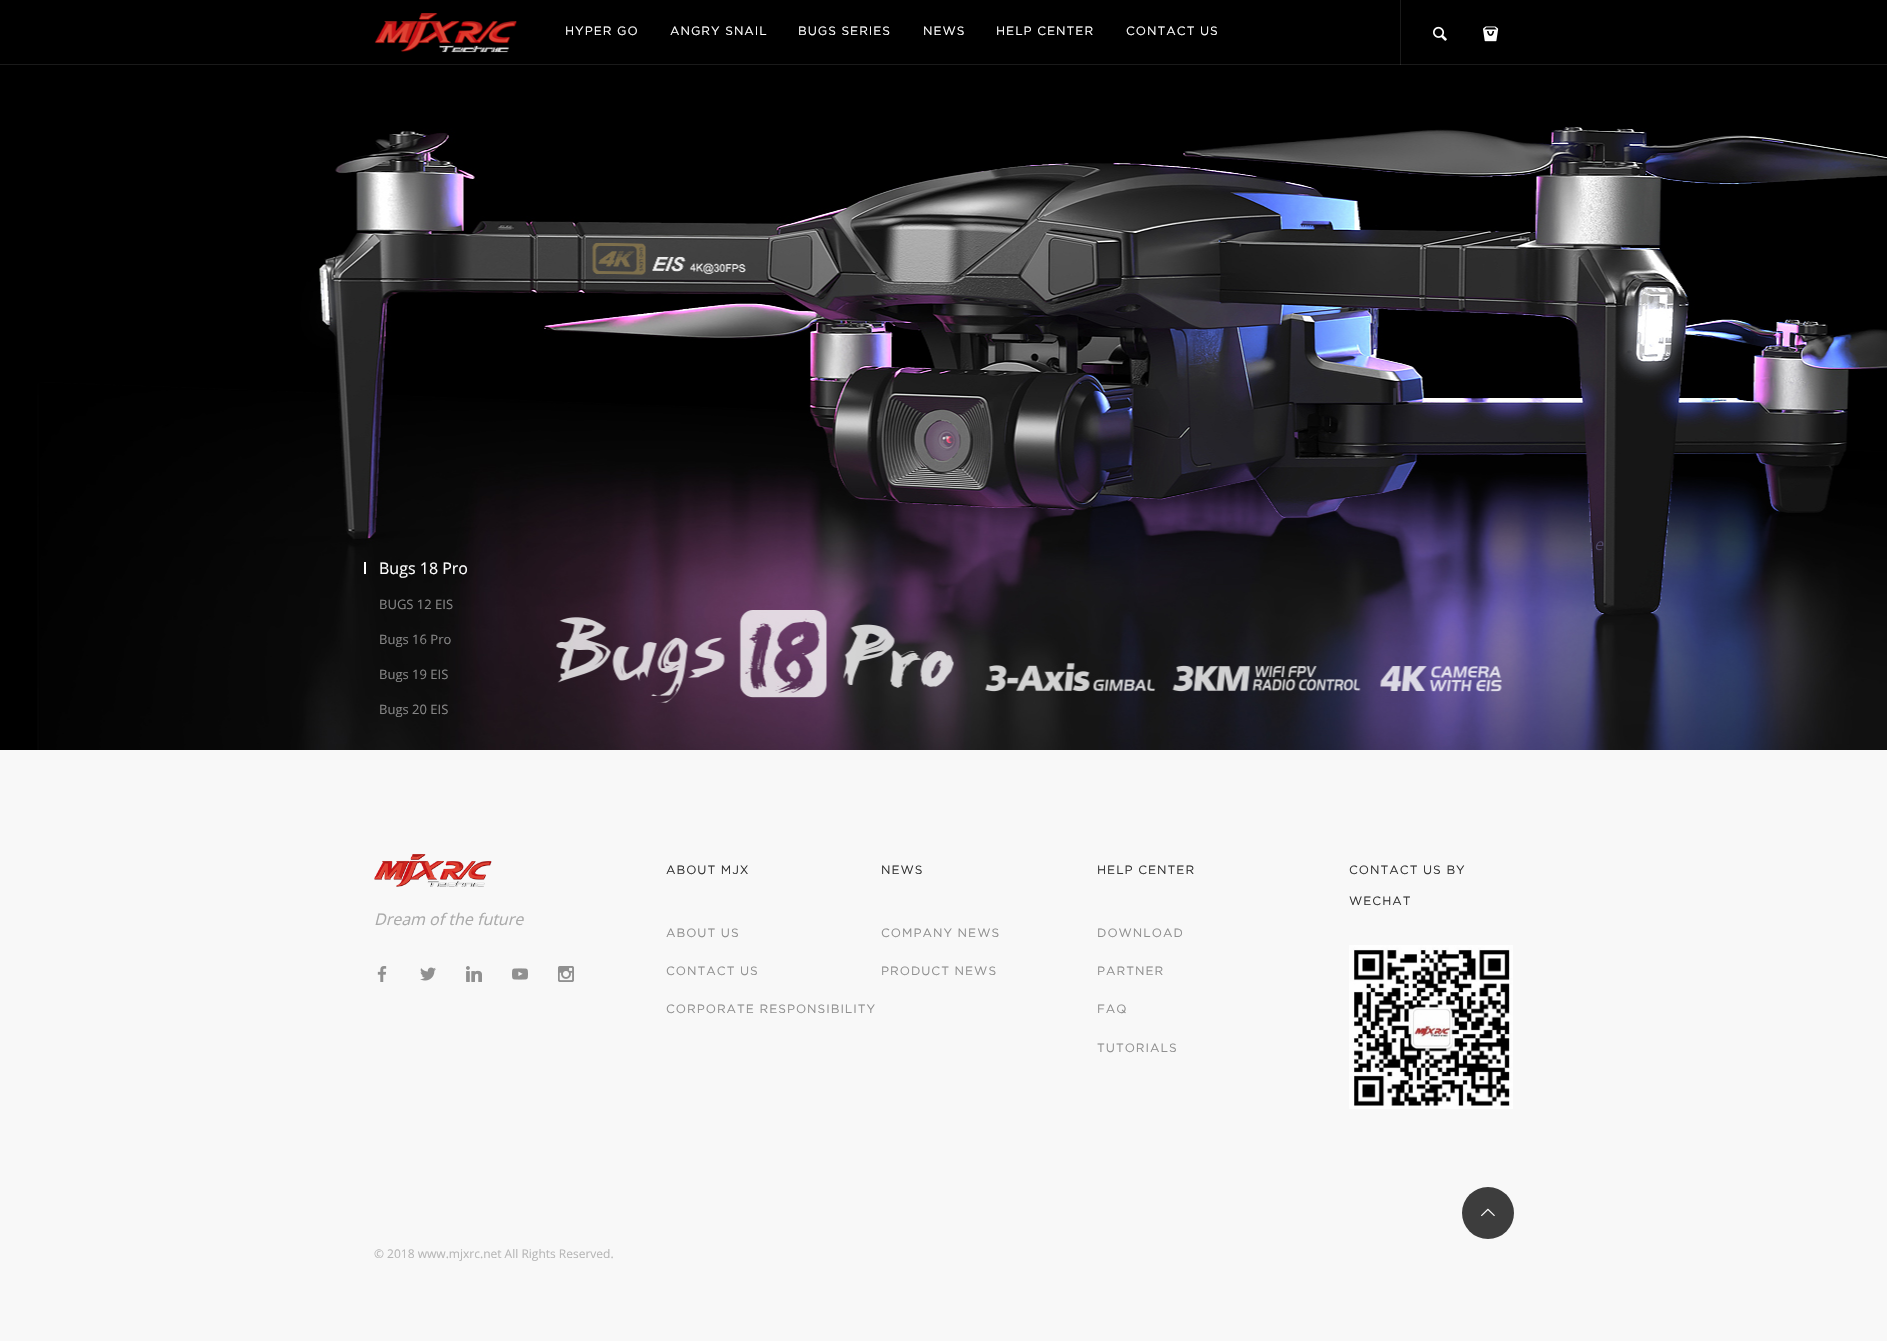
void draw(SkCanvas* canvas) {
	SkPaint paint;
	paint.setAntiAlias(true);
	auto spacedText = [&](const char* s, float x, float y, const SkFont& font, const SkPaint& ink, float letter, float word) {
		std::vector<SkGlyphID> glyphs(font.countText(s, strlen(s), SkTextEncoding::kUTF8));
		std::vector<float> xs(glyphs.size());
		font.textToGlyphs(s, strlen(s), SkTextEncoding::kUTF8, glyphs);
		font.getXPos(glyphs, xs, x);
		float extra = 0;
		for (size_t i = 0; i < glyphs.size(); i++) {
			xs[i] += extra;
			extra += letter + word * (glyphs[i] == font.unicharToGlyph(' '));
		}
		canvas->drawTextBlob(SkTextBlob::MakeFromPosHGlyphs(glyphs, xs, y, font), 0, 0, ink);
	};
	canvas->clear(0xfff8f8f8);
	canvas->drawImageRect(SkImages::DeferredFromEncodedData(SkData::MakeFromFileName("img4.png")), SkRect::MakeXYWH(0, 0, 1887, 750), SkSamplingOptions());
	paint.setColor(0xff1a1a1a);
	canvas->drawRect(SkRect::MakeXYWH(0, 64, 1887, 1), paint);
	canvas->drawImageRect(SkImages::DeferredFromEncodedData(SkData::MakeFromFileName("img1.png")), SkRect::MakeXYWH(374, 13, 143, 40), SkSamplingOptions());
	SkFont f1(fontMgr->matchFamilyStyle("Gotham", SkFontStyle::Normal()), 12);
	f1.setSubpixel(true);
	paint.setColor(0xffffffff);
	spacedText("HYPER GO", 565, 35, f1, paint, 1, 0);
	spacedText("ANGRY SNAIL", 670, 35, f1, paint, 1, 0);
	spacedText("BUGS SERIES", 798, 35, f1, paint, 1, 0);
	spacedText("NEWS", 923, 35, f1, paint, 1, 0);
	spacedText("HELP CENTER", 996, 35, f1, paint, 1, 0);
	spacedText("CONTACT US", 1126, 35, f1, paint, 1, 0);
	paint.setColor(0x1affffff);
	canvas->drawRect(SkRect::MakeXYWH(1400, 0, 1, 65), paint);
	canvas->drawImageRect(SkImages::DeferredFromEncodedData(SkData::MakeFromFileName("img2.png")), SkRect::MakeXYWH(1433, 26, 14, 15), SkSamplingOptions());
	canvas->drawImageRect(SkImages::DeferredFromEncodedData(SkData::MakeFromFileName("img3.png")), SkRect::MakeXYWH(1483, 26, 16, 16), SkSamplingOptions());
	SkFont f2(fontMgr->matchFamilyStyle("Gotham", SkFontStyle::Bold()), 23);
	f2.setSubpixel(true);
	paint.setColor(0xff2f2f3b);
	canvas->drawString("I", 1391, 405, f2, paint);
	SkFont f3(fontMgr->matchFamilyStyle("Open Sans", SkFontStyle::Italic()), 16);
	f3.setSubpixel(true);
	paint.setColor(0xff4b4563);
	canvas->drawString("e", 1594, 550, f3, paint);
	paint.setColor(0xffffffff);
	canvas->drawRect(SkRect::MakeXYWH(364, 562, 2, 12), paint);
	SkFont f4(fontMgr->matchFamilyStyle("Open Sans", SkFontStyle::Normal()), 16);
	f4.setSubpixel(true);
	canvas->drawString("Bugs 18 Pro", 379, 574, f4, paint);
	SkFont f5(fontMgr->matchFamilyStyle("Open Sans", SkFontStyle::Normal()), 13);
	f5.setSubpixel(true);
	paint.setColor(0xff868686);
	canvas->drawString("BUGS 12 EIS", 379, 609, f5, paint);
	canvas->drawString("Bugs 16 Pro", 379, 644, f5, paint);
	canvas->drawString("Bugs 19 EIS", 379, 679, f5, paint);
	canvas->drawString("Bugs 20 EIS", 379, 714, f5, paint);
	paint.setColor(0xff343434);
	spacedText("ABOUT MJX", 666, 874, f1, paint, 1, 0);
	paint.setColor(0xff909090);
	spacedText("ABOUT US", 666, 937, f1, paint, 1, 0);
	spacedText("CONTACT US", 666, 975, f1, paint, 1, 0);
	spacedText("CORPORATE RESPONSIBILITY", 666, 1013, f1, paint, 1, 0);
	paint.setColor(0xff343434);
	spacedText("NEWS", 881, 874, f1, paint, 1, 0);
	paint.setColor(0xff909090);
	spacedText("COMPANY NEWS", 881, 937, f1, paint, 1, 0);
	spacedText("PRODUCT NEWS", 881, 975, f1, paint, 1, 0);
	paint.setColor(0xff343434);
	spacedText("HELP CENTER", 1097, 874, f1, paint, 1, 0);
	paint.setColor(0xff909090);
	spacedText("DOWNLOAD", 1097, 937, f1, paint, 1, 0);
	spacedText("PARTNER", 1097, 975, f1, paint, 1, 0);
	spacedText("FAQ", 1097, 1013, f1, paint, 1, 0);
	spacedText("TUTORIALS", 1097, 1052, f1, paint, 1, 0);
	paint.setColor(0xff343434);
	spacedText("CONTACT US BY", 1349, 874, f1, paint, 1, 0);
	spacedText("WECHAT", 1349, 905, f1, paint, 1, 0);
	canvas->drawImageRect(SkImages::DeferredFromEncodedData(SkData::MakeFromFileName("img5.png")), SkRect::MakeXYWH(1349, 945, 164, 164), SkSamplingOptions());
	canvas->drawImageRect(SkImages::DeferredFromEncodedData(SkData::MakeFromFileName("img6.png")), SkRect::MakeXYWH(374, 854, 118, 33), SkSamplingOptions());
	paint.setColor(0xffaaaaaa);
	canvas->drawString("Dream of the future", 374, 925, f3, paint);
	canvas->drawImageRect(SkImages::DeferredFromEncodedData(SkData::MakeFromFileName("img7.png")), SkRect::MakeXYWH(377, 966, 10, 16), SkSamplingOptions());
	canvas->drawImageRect(SkImages::DeferredFromEncodedData(SkData::MakeFromFileName("img8.png")), SkRect::MakeXYWH(420, 967, 16, 14), SkSamplingOptions());
	canvas->drawImageRect(SkImages::DeferredFromEncodedData(SkData::MakeFromFileName("img9.png")), SkRect::MakeXYWH(466, 966, 16, 16), SkSamplingOptions());
	canvas->drawImageRect(SkImages::DeferredFromEncodedData(SkData::MakeFromFileName("img10.png")), SkRect::MakeXYWH(512, 968, 16, 12), SkSamplingOptions());
	canvas->drawImageRect(SkImages::DeferredFromEncodedData(SkData::MakeFromFileName("img11.png")), SkRect::MakeXYWH(558, 966, 16, 16), SkSamplingOptions());
	paint.setColor(0xff3d3d3d);
	canvas->drawCircle(1488, 1213, 26, paint);
	canvas->drawImageRect(SkImages::DeferredFromEncodedData(SkData::MakeFromFileName("img12.png")), SkRect::MakeXYWH(1481, 1208, 14, 8), SkSamplingOptions());
	SkFont f6(fontMgr->matchFamilyStyle("Open Sans", SkFontStyle::Normal()), 12);
	f6.setSubpixel(true);
	paint.setColor(0xffb7b7b7);
	canvas->drawString("© 2018 www.mjxrc.net All Rights Reserved.", 374, 1258, f6, paint);
}
